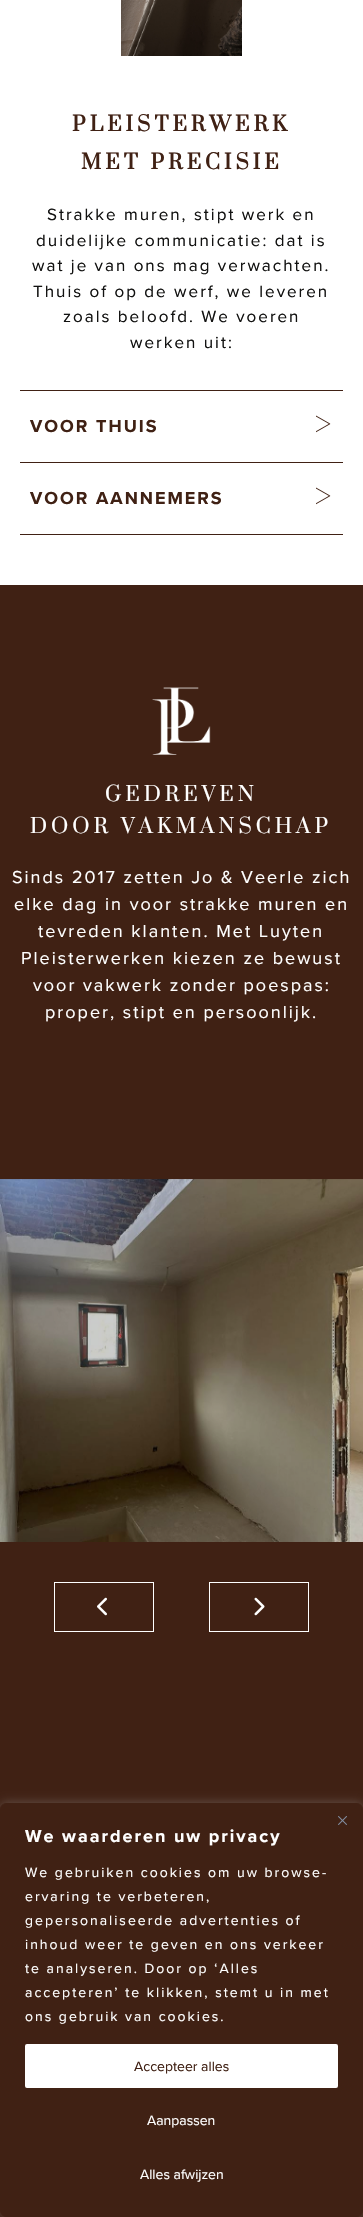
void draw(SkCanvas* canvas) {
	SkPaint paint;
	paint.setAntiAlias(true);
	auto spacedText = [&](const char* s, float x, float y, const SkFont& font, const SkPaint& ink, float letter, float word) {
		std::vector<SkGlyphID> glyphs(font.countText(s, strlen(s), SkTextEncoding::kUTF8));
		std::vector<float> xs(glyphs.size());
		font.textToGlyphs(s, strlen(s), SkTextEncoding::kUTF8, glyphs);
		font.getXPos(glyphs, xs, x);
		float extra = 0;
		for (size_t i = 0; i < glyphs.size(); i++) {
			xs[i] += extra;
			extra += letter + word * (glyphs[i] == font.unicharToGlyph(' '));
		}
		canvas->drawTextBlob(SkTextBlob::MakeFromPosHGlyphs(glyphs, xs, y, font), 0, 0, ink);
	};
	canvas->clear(0xffffffff);
	canvas->drawImageRect(SkImages::DeferredFromEncodedData(SkData::MakeFromFileName("img1.png")), SkRect::MakeXYWH(121, 0, 121, 56), SkSamplingOptions());
	SkFont f1(fontMgr->matchFamilyStyle("Prata", SkFontStyle::Bold()), 20);
	f1.setSubpixel(true);
	paint.setColor(0xff402114);
	spacedText("PLEISTERWERK", 72, 131, f1, paint, 4, 0);
	spacedText("MET PRECISIE", 81, 169, f1, paint, 4, 0);
	SkFont f2(fontMgr->matchFamilyStyle("Proxima Nova", SkFontStyle::Normal()), 17);
	f2.setSubpixel(true);
	paint.setColor(0xff121211);
	spacedText("Strakke muren, stipt werk en", 47, 220, f2, paint, 2, 0);
	spacedText("duidelijke communicatie: dat is", 36, 246, f2, paint, 2, 0);
	spacedText("wat je van ons mag verwachten.", 32, 271, f2, paint, 2, 0);
	spacedText("Thuis of op de werf, we leveren", 33, 297, f2, paint, 2, 0);
	spacedText("zoals beloofd. We voeren", 63, 322, f2, paint, 2, 0);
	spacedText("werken uit:", 130, 348, f2, paint, 2, 0);
	paint.setColor(0xff402114);
	canvas->drawRect(SkRect::MakeXYWH(20, 390, 323, 1), paint);
	canvas->drawRect(SkRect::MakeXYWH(20, 462, 323, 1), paint);
	SkFont f3(fontMgr->matchFamilyStyle("Proxima Nova", SkFontStyle::Bold()), 18);
	f3.setSubpixel(true);
	spacedText("VOOR THUIS", 30, 432, f3, paint, 2, 0);
	canvas->drawImageRect(SkImages::DeferredFromEncodedData(SkData::MakeFromFileName("img2.png")), SkRect::MakeXYWH(316, 415, 15, 18), SkSamplingOptions());
	canvas->drawRect(SkRect::MakeXYWH(20, 534, 323, 1), paint);
	spacedText("VOOR AANNEMERS", 30, 504, f3, paint, 2, 0);
	canvas->drawImageRect(SkImages::DeferredFromEncodedData(SkData::MakeFromFileName("img2.png")), SkRect::MakeXYWH(316, 487, 15, 18), SkSamplingOptions());
	canvas->drawRect(SkRect::MakeXYWH(0, 585, 363, 1632), paint);
	canvas->drawImageRect(SkImages::DeferredFromEncodedData(SkData::MakeFromFileName("img3.png")), SkRect::MakeXYWH(152, 687, 59, 68), SkSamplingOptions());
	SkFont f4(fontMgr->matchFamilyStyle("Prata", SkFontStyle::Normal()), 20);
	f4.setSubpixel(true);
	paint.setColor(0xffffffff);
	spacedText("GEDREVEN", 105, 801, f4, paint, 4, 0);
	spacedText("DOOR VAKMANSCHAP", 30, 833, f4, paint, 4, 0);
	SkFont f5(fontMgr->matchFamilyStyle("Proxima Nova", SkFontStyle::Normal()), 18);
	f5.setSubpixel(true);
	spacedText("Sinds 2017 zetten Jo & Veerle zich", 12, 883, f5, paint, 2, 0);
	spacedText("elke dag in voor strakke muren en", 14, 910, f5, paint, 2, 0);
	spacedText("tevreden klanten. Met Luyten", 38, 937, f5, paint, 2, 0);
	spacedText("Pleisterwerken kiezen ze bewust", 21, 964, f5, paint, 2, 0);
	spacedText("voor vakwerk zonder poespas:", 33, 991, f5, paint, 2, 0);
	spacedText("proper, stipt en persoonlijk.", 45, 1018, f5, paint, 2, 0);
	canvas->drawImageRect(SkImages::DeferredFromEncodedData(SkData::MakeFromFileName("img4.png")), SkRect::MakeXYWH(0, 1179, 363, 363), SkSamplingOptions());
	paint.setStroke(true);
	paint.setStrokeWidth(1);
	canvas->drawRect(SkRect::MakeXYWH(54.5, 1582.5, 99, 49), paint);
	canvas->drawImageRect(SkImages::DeferredFromEncodedData(SkData::MakeFromFileName("img5.png")), SkRect::MakeXYWH(97, 1597, 10, 19), SkSamplingOptions());
	canvas->drawRect(SkRect::MakeXYWH(209.5, 1582.5, 99, 49), paint);
	canvas->drawImageRect(SkImages::DeferredFromEncodedData(SkData::MakeFromFileName("img6.png")), SkRect::MakeXYWH(254, 1597, 11, 19), SkSamplingOptions());
	paint.setStroke(false);
	paint.setColor(0x4dacabab);
	paint.setMaskFilter(SkMaskFilter::MakeBlur(kNormal_SkBlurStyle, 5));
	canvas->drawRoundRect(SkRect::MakeXYWH(0, 1802, 363, 414), 6, 6, paint);
	paint.setMaskFilter(nullptr);
	paint.setColor(0xff402114);
	canvas->drawRoundRect(SkRect::MakeXYWH(0.5, 1803.5, 362, 413), 5.5, 5.5, paint);
	paint.setStroke(true);
	canvas->drawRoundRect(SkRect::MakeXYWH(0.5, 1803.5, 362, 413), 5.5, 5.5, paint);
	canvas->drawImageRect(SkImages::DeferredFromEncodedData(SkData::MakeFromFileName("img7.png")), SkRect::MakeXYWH(338, 1816, 9, 9), SkSamplingOptions());
	paint.setStroke(false);
	paint.setColor(0xffffffff);
	spacedText("We waarderen uw privacy", 25, 1842, f3, paint, 2, 0);
	SkFont f6(fontMgr->matchFamilyStyle("Proxima Nova", SkFontStyle::Normal()), 14);
	f6.setSubpixel(true);
	spacedText("We gebruiken cookies om uw browse-", 25, 1877, f6, paint, 2, 0);
	spacedText("ervaring te verbeteren,", 25, 1901, f6, paint, 2, 0);
	spacedText("gepersonaliseerde advertenties of", 25, 1925, f6, paint, 2, 0);
	spacedText("inhoud weer te geven en ons verkeer", 25, 1949, f6, paint, 2, 0);
	spacedText("te analyseren. Door op ‘Alles", 25, 1973, f6, paint, 2, 0);
	spacedText("accepteren’ te klikken, stemt u in met", 25, 1997, f6, paint, 2, 0);
	spacedText("ons gebruik van cookies.", 25, 2021, f6, paint, 2, 0);
	canvas->drawRoundRect(SkRect::MakeXYWH(26, 2045, 311, 42), 1, 1, paint);
	paint.setStroke(true);
	paint.setStrokeWidth(2);
	canvas->drawRoundRect(SkRect::MakeXYWH(26, 2045, 311, 42), 1, 1, paint);
	paint.setStroke(false);
	paint.setColor(0xff402114);
	canvas->drawString("Accepteer alles", 134, 2071, f6, paint);
	paint.setColor(0xffffffff);
	canvas->drawString("Aanpassen", 147, 2125, f6, paint);
	canvas->drawString("Alles afwijzen", 140, 2179, f6, paint);
}
